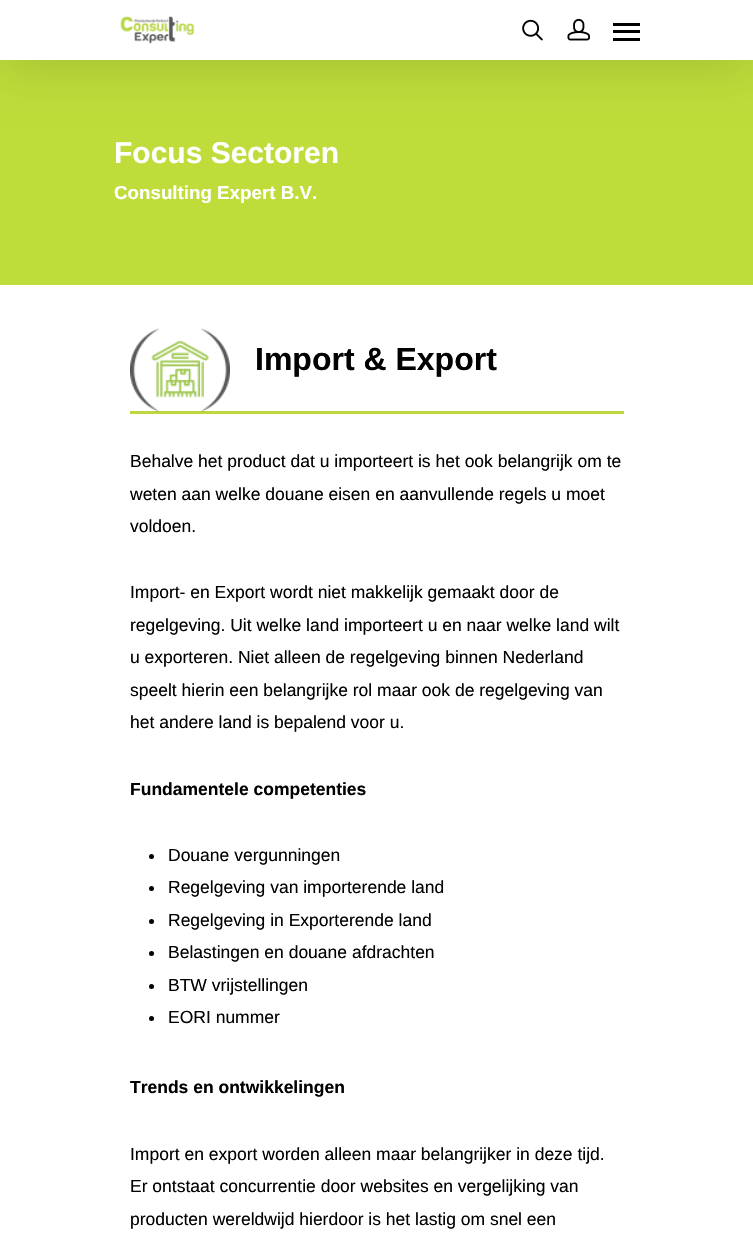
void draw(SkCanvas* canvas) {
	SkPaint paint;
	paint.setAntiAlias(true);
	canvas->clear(0xffffffff);
	paint.setColor(0xffbedd3a);
	canvas->drawRect(SkRect::MakeXYWH(0, 60, 753, 225), paint);
	paint.setColor(0x26000000);
	paint.setMaskFilter(SkMaskFilter::MakeBlur(kNormal_SkBlurStyle, 28));
	canvas->drawRect(SkRect::MakeXYWH(0, 4, 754, 60), paint);
	paint.setMaskFilter(nullptr);
	paint.setColor(0xffffffff);
	canvas->drawRect(SkRect::MakeXYWH(0, 0, 753, 60), paint);
	canvas->drawImageRect(SkImages::DeferredFromEncodedData(SkData::MakeFromFileName("img1.png")), SkRect::MakeXYWH(120, 16, 75, 28), SkSamplingOptions());
	canvas->drawImageRect(SkImages::DeferredFromEncodedData(SkData::MakeFromFileName("img2.png")), SkRect::MakeXYWH(522, 19, 21, 22), SkSamplingOptions());
	canvas->drawImageRect(SkImages::DeferredFromEncodedData(SkData::MakeFromFileName("img3.png")), SkRect::MakeXYWH(567, 18, 23, 23), SkSamplingOptions());
	paint.setColor(0xff000000);
	canvas->drawRect(SkRect::MakeXYWH(613, 23, 27, 3), paint);
	canvas->drawRect(SkRect::MakeXYWH(613, 38, 27, 3), paint);
	canvas->drawRect(SkRect::MakeXYWH(613, 30, 27, 3), paint);
	SkFont f1(fontMgr->matchFamilyStyle("Liberation Sans", SkFontStyle::Bold()), 30);
	f1.setSubpixel(true);
	paint.setColor(0xffffffff);
	canvas->drawString("Focus Sectoren", 114, 163, f1, paint);
	SkFont f2(fontMgr->matchFamilyStyle("Liberation Sans", SkFontStyle::Bold()), 18.75);
	f2.setSubpixel(true);
	canvas->drawString("Consulting Expert B.V.", 114, 199, f2, paint);
	paint.setColor(0xffbed73e);
	canvas->drawRect(SkRect::MakeXYWH(130, 411, 494, 3), paint);
	canvas->drawImageRect(SkImages::DeferredFromEncodedData(SkData::MakeFromFileName("img4.png")), SkRect::MakeXYWH(130, 328, 100, 84), SkSamplingOptions());
	SkFont f3(fontMgr->matchFamilyStyle("Liberation Sans", SkFontStyle::Bold()), 32);
	f3.setSubpixel(true);
	paint.setColor(0xff000000);
	canvas->drawString("Import & Export", 255, 370, f3, paint);
	SkFont f4(fontMgr->matchFamilyStyle("Liberation Sans", SkFontStyle::Normal()), 17.5);
	f4.setSubpixel(true);
	canvas->drawString("Behalve het product dat u importeert is het ook belangrijk om te", 130, 467, f4, paint);
	canvas->drawString("weten aan welke douane eisen en aanvullende regels u moet", 130, 500, f4, paint);
	canvas->drawString("voldoen.", 130, 532, f4, paint);
	canvas->drawString("Import- en Export wordt niet makkelijk gemaakt door de", 130, 598, f4, paint);
	canvas->drawString("regelgeving. Uit welke land importeert u en naar welke land wilt", 130, 631, f4, paint);
	canvas->drawString("u exporteren. Niet alleen de regelgeving binnen Nederland", 130, 663, f4, paint);
	canvas->drawString("speelt hierin een belangrijke rol maar ook de regelgeving van", 130, 696, f4, paint);
	canvas->drawString("het andere land is bepalend voor u.", 130, 728, f4, paint);
	SkFont f5(fontMgr->matchFamilyStyle("Liberation Sans", SkFontStyle::Bold()), 17.5);
	f5.setSubpixel(true);
	canvas->drawString("Fundamentele competenties", 130, 795, f5, paint);
	canvas->drawCircle(151.5, 856.5, 2.5, paint);
	canvas->drawString("Douane vergunningen", 168, 861, f4, paint);
	canvas->drawCircle(151.5, 888.5, 2.5, paint);
	canvas->drawString("Regelgeving van importerende land", 168, 893, f4, paint);
	canvas->drawCircle(151.5, 921.5, 2.5, paint);
	canvas->drawString("Regelgeving in Exporterende land", 168, 926, f4, paint);
	canvas->drawCircle(151.5, 953.5, 2.5, paint);
	canvas->drawString("Belastingen en douane afdrachten", 168, 958, f4, paint);
	canvas->drawCircle(151.5, 986.5, 2.5, paint);
	canvas->drawString("BTW vrijstellingen", 168, 991, f4, paint);
	canvas->drawCircle(151.5, 1018.5, 2.5, paint);
	canvas->drawString("EORI nummer", 168, 1023, f4, paint);
	canvas->drawString("Trends en ontwikkelingen", 130, 1093, f5, paint);
	canvas->drawString("Import en export worden alleen maar belangrijker in deze tijd.", 130, 1160, f4, paint);
	canvas->drawString("Er ontstaat concurrentie door websites en vergelijking van", 130, 1192, f4, paint);
	canvas->drawString("producten wereldwijd hierdoor is het lastig om snel een", 130, 1225, f4, paint);
}
